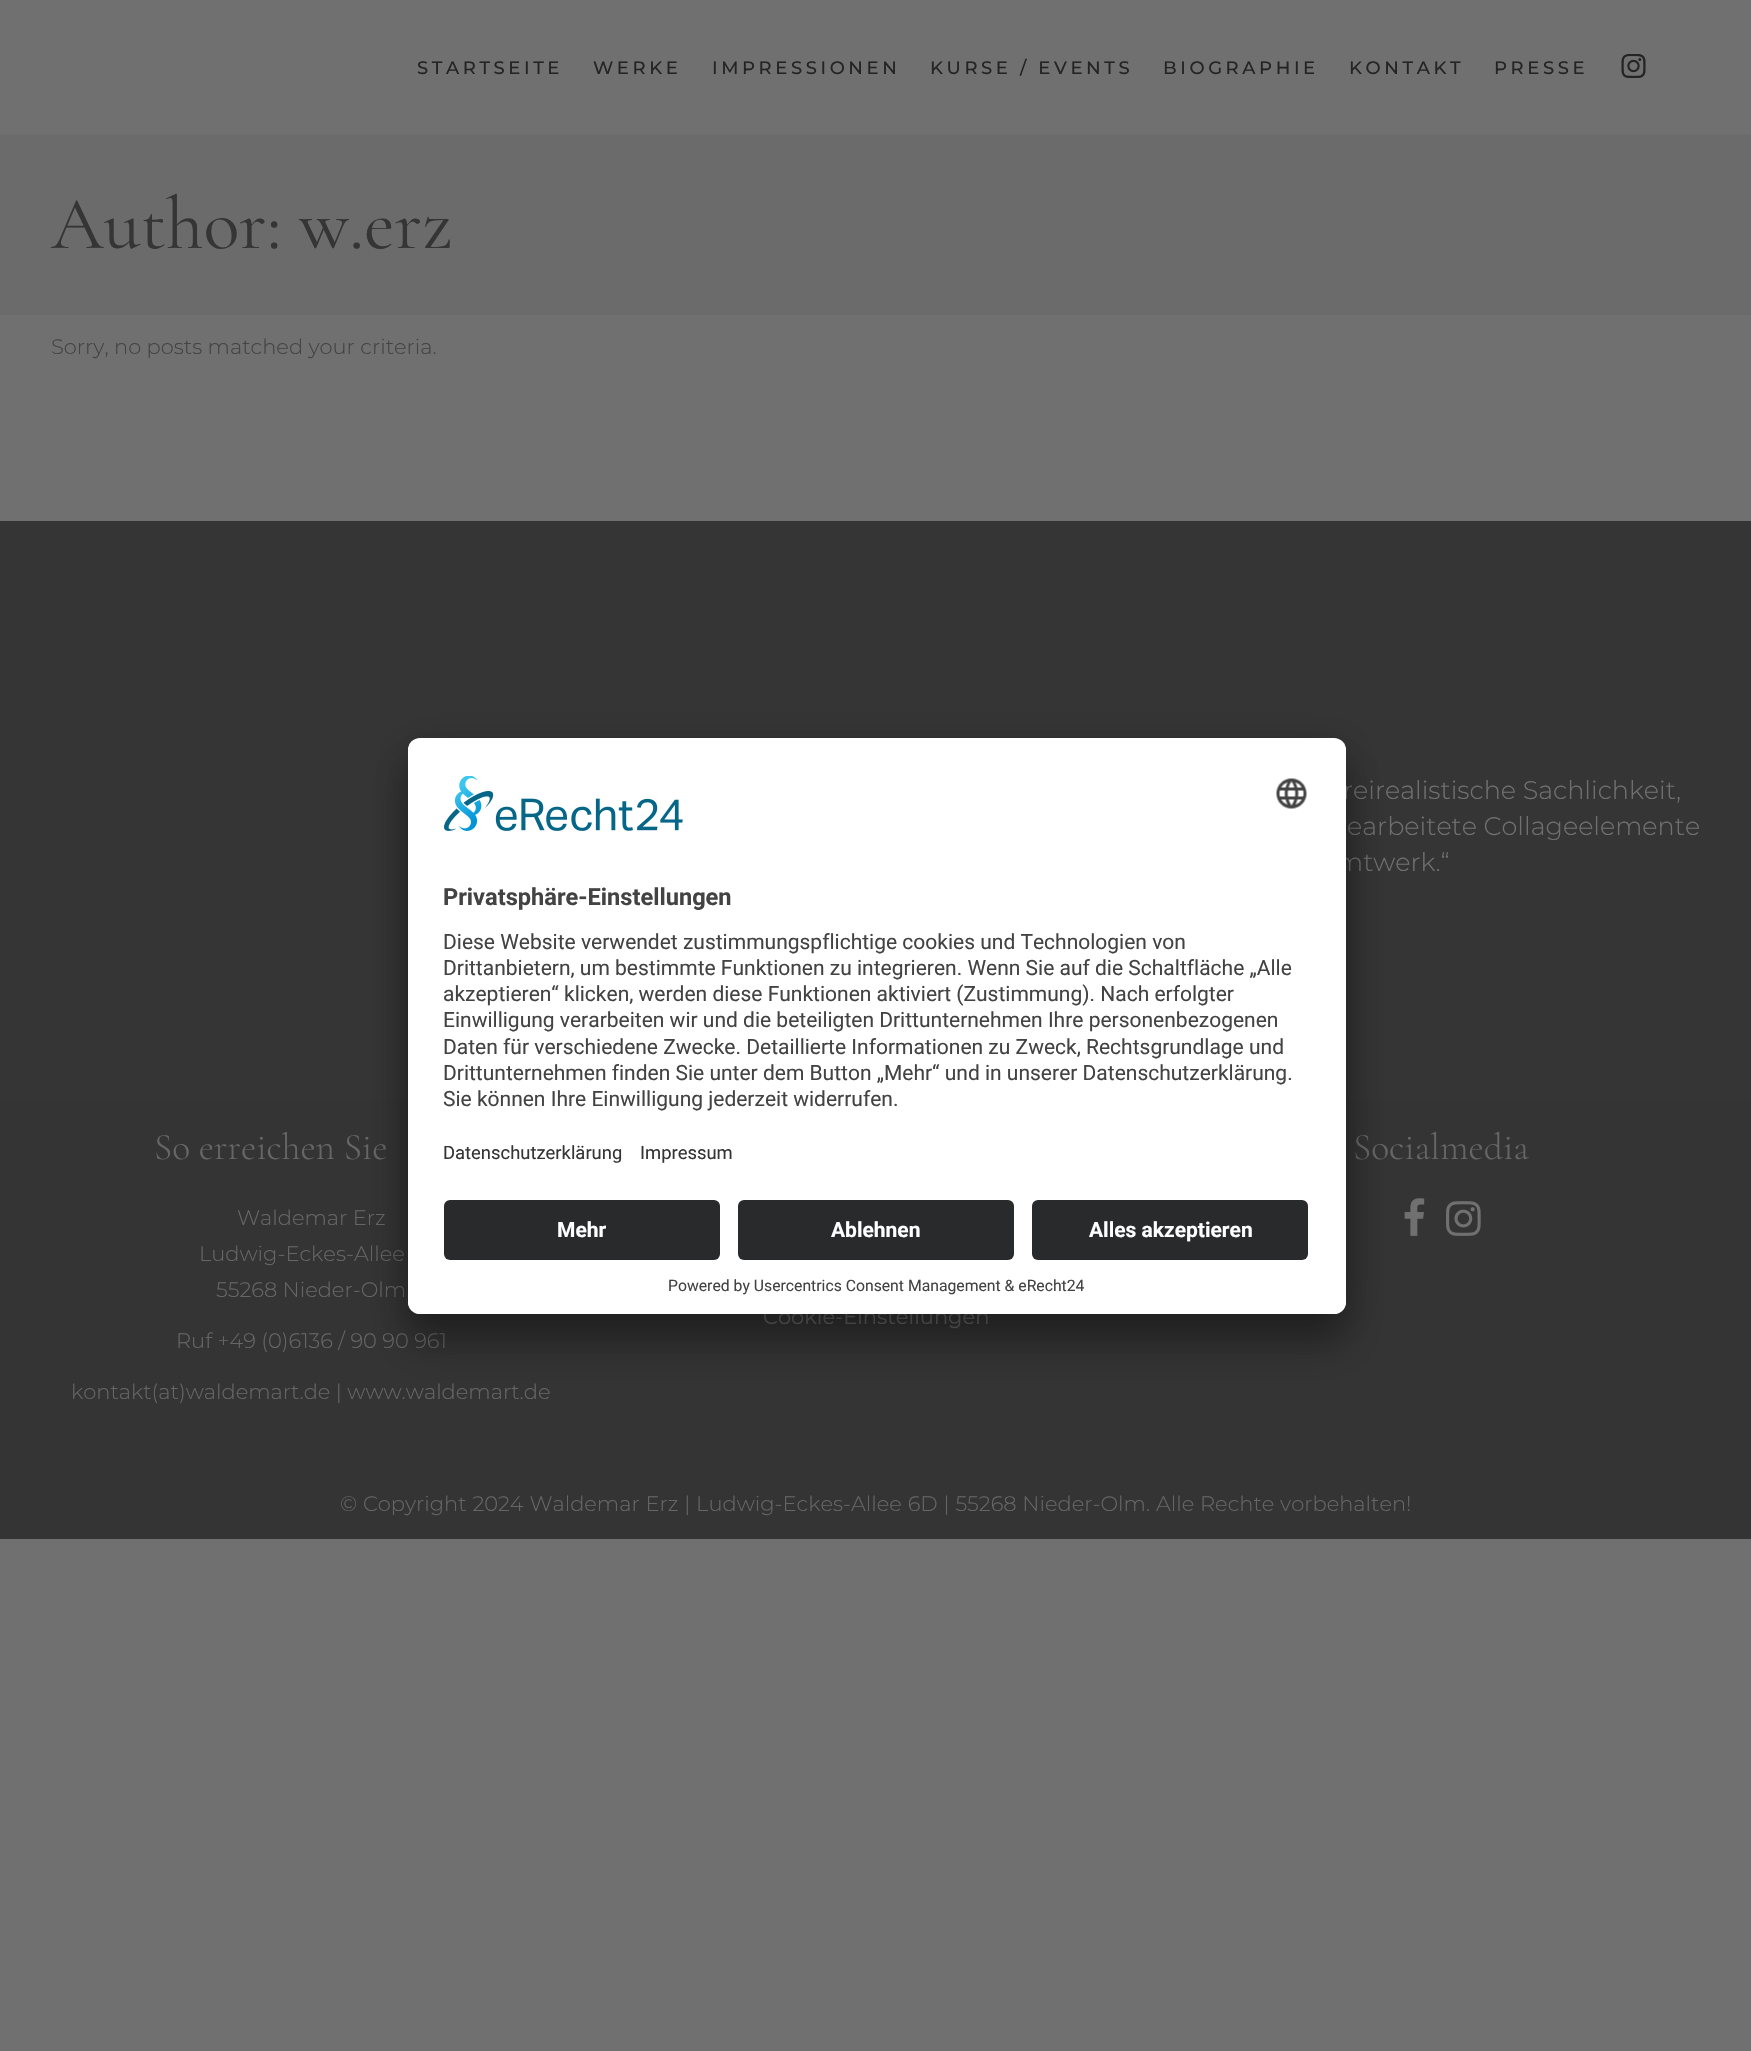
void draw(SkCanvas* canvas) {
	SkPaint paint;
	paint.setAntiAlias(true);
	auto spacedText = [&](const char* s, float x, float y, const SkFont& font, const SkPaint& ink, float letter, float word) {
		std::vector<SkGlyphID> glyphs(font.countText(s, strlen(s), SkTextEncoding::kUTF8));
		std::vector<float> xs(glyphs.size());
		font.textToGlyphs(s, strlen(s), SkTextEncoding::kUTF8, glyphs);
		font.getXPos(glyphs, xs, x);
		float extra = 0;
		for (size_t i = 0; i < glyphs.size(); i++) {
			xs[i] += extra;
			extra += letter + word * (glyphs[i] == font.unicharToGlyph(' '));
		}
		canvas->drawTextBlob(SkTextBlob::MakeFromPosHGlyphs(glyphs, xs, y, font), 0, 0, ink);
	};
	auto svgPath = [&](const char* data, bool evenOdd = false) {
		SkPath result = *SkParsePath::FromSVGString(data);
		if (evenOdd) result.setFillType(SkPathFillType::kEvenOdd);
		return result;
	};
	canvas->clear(0xff707070);
	SkFont f1(fontMgr->matchFamilyStyle("Montserrat", SkFontStyle(500, SkFontStyle::kNormal_Width, SkFontStyle::kUpright_Slant)), 18);
	f1.setSubpixel(true);
	paint.setColor(0xff242424);
	spacedText("STARTSEITE", 417, 74, f1, paint, 3.6, 0);
	spacedText("WERKE", 593, 74, f1, paint, 3.6, 0);
	spacedText("IMPRESSIONEN", 712, 74, f1, paint, 3.6, 0);
	spacedText("KURSE / EVENTS", 930, 74, f1, paint, 3.6, 0);
	spacedText("BIOGRAPHIE", 1163, 74, f1, paint, 3.6, 0);
	spacedText("KONTAKT", 1349, 74, f1, paint, 3.6, 0);
	spacedText("PRESSE", 1494, 74, f1, paint, 3.6, 0);
	canvas->drawImageRect(SkImages::DeferredFromEncodedData(SkData::MakeFromFileName("img1.png")), SkRect::MakeXYWH(1621, 54, 25, 24), SkSamplingOptions());
	paint.setColor(0xff6b6b6b);
	canvas->drawRect(SkRect::MakeXYWH(0, 135, 1751, 180), paint);
	SkFont f2(fontMgr->matchFamilyStyle("Cormorant Garamond", SkFontStyle::Normal()), 75);
	f2.setSubpixel(true);
	paint.setColor(0xff353535);
	canvas->drawString("Author: w.erz", 51, 248, f2, paint);
	SkFont f3(fontMgr->matchFamilyStyle("Montserrat", SkFontStyle(300, SkFontStyle::kNormal_Width, SkFontStyle::kUpright_Slant)), 21);
	f3.setSubpixel(true);
	paint.setColor(0xff434343);
	canvas->drawString("Sorry, no posts matched your criteria.", 51, 354, f3, paint);
	paint.setColor(0xff353535);
	canvas->drawRect(SkRect::MakeXYWH(0, 521, 1751, 579), paint);
	SkFont f4(fontMgr->matchFamilyStyle("Montserrat", SkFontStyle(300, SkFontStyle::kNormal_Width, SkFontStyle::kUpright_Slant)), 25.5);
	f4.setSubpixel(true);
	paint.setColor(0xff707070);
	canvas->drawString("reirealistische Sachlichkeit,", 1343, 799, f4, paint);
	canvas->drawString("earbeitete Collageelemente", 1347, 835, f4, paint);
	canvas->drawString("mtwerk.“", 1336, 871, f4, paint);
	paint.setColor(0xff343434);
	canvas->drawRect(SkRect::MakeXYWH(0, 1100, 1751, 439), paint);
	SkFont f5(fontMgr->matchFamilyStyle("Cormorant Garamond", SkFontStyle(300, SkFontStyle::kNormal_Width, SkFontStyle::kUpright_Slant)), 37.5);
	f5.setSubpixel(true);
	paint.setColor(0xff666666);
	canvas->drawString("So erreichen Sie", 154, 1159, f5, paint);
	canvas->drawString("Waldemar Erz", 237, 1225, f3, paint);
	canvas->drawString("Ludwig-Eckes-Allee", 199, 1261, f3, paint);
	canvas->drawString("55268 Nieder-Olm", 216, 1297, f3, paint);
	canvas->drawString("Ruf +49 (0)6136 / 90 90 961", 176, 1348, f3, paint);
	canvas->drawString("kontakt(at)waldemart.de | www.waldemart.de", 71, 1399, f3, paint);
	canvas->drawString("Socialmedia", 1353, 1159, f5, paint);
	canvas->drawImageRect(SkImages::DeferredFromEncodedData(SkData::MakeFromFileName("img2.png")), SkRect::MakeXYWH(1404, 1198, 21, 38), SkSamplingOptions());
	canvas->drawImageRect(SkImages::DeferredFromEncodedData(SkData::MakeFromFileName("img3.png")), SkRect::MakeXYWH(1446, 1201, 35, 35), SkSamplingOptions());
	SkFont f6(fontMgr->matchFamilyStyle("Montserrat", SkFontStyle::Normal()), 21);
	f6.setSubpixel(true);
	canvas->drawString("Cookie-Einstellungen", 763, 1324, f6, paint);
	spacedText("© Copyright 2024 Waldemar Erz | Ludwig-Eckes-Allee 6D | 55268 Nieder-Olm. Alle Rechte vorbehalten!", 340, 1511, f3, paint, 0, 0.4);
	paint.setColor(0x4d000000);
	paint.setMaskFilter(SkMaskFilter::MakeBlur(kNormal_SkBlurStyle, 21));
	canvas->drawRoundRect(SkRect::MakeXYWH(408, 768, 938, 576), 12, 12, paint);
	paint.setMaskFilter(nullptr);
	paint.setColor(0x38000000);
	paint.setMaskFilter(SkMaskFilter::MakeBlur(kNormal_SkBlurStyle, 19.5));
	canvas->drawRoundRect(SkRect::MakeXYWH(408, 746, 938, 576), 12, 12, paint);
	paint.setMaskFilter(nullptr);
	paint.setColor(0xffffffff);
	canvas->drawRoundRect(SkRect::MakeXYWH(408, 738, 938, 576), 12, 12, paint);
	canvas->save();
	canvas->clipPath(svgPath("M420 738H1334C1340.5 738 1346 743.5 1346 750V1302C1346 1308.5 1340.5 1314 1334 1314H420C413.5 1314 408 1308.5 408 1302V750C408 743.5 413.5 738 420 738Z"), true);
	canvas->clipPath(svgPath("M420 738H1334C1340.5 738 1346 743.5 1346 750V1188H408V750C408 743.5 413.5 738 420 738Z"), true);
	canvas->drawRect(SkRect::MakeXYWH(408, 740, 938, 448), paint);
	canvas->restore();
	canvas->drawImageRect(SkImages::DeferredFromEncodedData(SkData::MakeFromFileName("img4.png")), SkRect::MakeXYWH(444, 776, 239, 55), SkSamplingOptions());
	canvas->drawImageRect(SkImages::DeferredFromEncodedData(SkData::MakeFromFileName("img5.png")), SkRect::MakeXYWH(1276, 778, 31, 31), SkSamplingOptions());
	SkFont f7(fontMgr->matchFamilyStyle("Roboto", SkFontStyle::Bold()), 23.6);
	f7.setSubpixel(true);
	paint.setColor(0xff434343);
	canvas->drawString("Privatsphäre-Einstellungen", 443, 905, f7, paint);
	SkFont f8(fontMgr->matchFamilyStyle("Roboto", SkFontStyle::Normal()), 21);
	f8.setSubpixel(true);
	canvas->drawString("Diese Website verwendet zustimmungspflichtige cookies und Technologien von", 443, 949, f8, paint);
	canvas->drawString("Drittanbietern, um bestimmte Funktionen zu integrieren. Wenn Sie auf die Schaltfläche „Alle", 443, 975, f8, paint);
	canvas->drawString("akzeptieren“ klicken, werden diese Funktionen aktiviert (Zustimmung). Nach erfolgter", 443, 1001, f8, paint);
	canvas->drawString("Einwilligung verarbeiten wir und die beteiligten Drittunternehmen Ihre personenbezogenen", 443, 1027, f8, paint);
	canvas->drawString("Daten für verschiedene Zwecke. Detaillierte Informationen zu Zweck, Rechtsgrundlage und", 443, 1054, f8, paint);
	canvas->drawString("Drittunternehmen finden Sie unter dem Button „Mehr“ und in unserer Datenschutzerklärung.", 443, 1080, f8, paint);
	canvas->drawString("Sie können Ihre Einwilligung jederzeit widerrufen.", 443, 1106, f8, paint);
	SkFont f9(fontMgr->matchFamilyStyle("Roboto", SkFontStyle::Normal()), 18.4);
	f9.setSubpixel(true);
	paint.setColor(0xff353535);
	canvas->drawString("Datenschutzerklärung", 443, 1159, f9, paint);
	canvas->drawString("Impressum", 640, 1159, f9, paint);
	paint.setColor(0xffffffff);
	canvas->drawPath(svgPath("M408 1188H1346V1302C1346 1308.5 1340.5 1314 1334 1314H420C413.5 1314 408 1308.5 408 1302Z"), paint);
	paint.setColor(0xff292a2b);
	canvas->drawRoundRect(SkRect::MakeXYWH(444, 1200, 276, 60), 6, 6, paint);
	SkFont f10(fontMgr->matchFamilyStyle("Roboto", SkFontStyle::Bold()), 21);
	f10.setSubpixel(true);
	paint.setColor(0xffffffff);
	canvas->drawString("Mehr", 557, 1237, f10, paint);
	paint.setColor(0xff292a2b);
	canvas->drawRoundRect(SkRect::MakeXYWH(738, 1200, 276, 60), 6, 6, paint);
	paint.setColor(0xffffffff);
	canvas->drawString("Ablehnen", 831, 1237, f10, paint);
	paint.setColor(0xff292a2b);
	canvas->drawRoundRect(SkRect::MakeXYWH(1032, 1200, 276, 60), 6, 6, paint);
	paint.setColor(0xffffffff);
	canvas->drawString("Alles akzeptieren", 1089, 1237, f10, paint);
	SkFont f11(fontMgr->matchFamilyStyle("Roboto", SkFontStyle::Normal()), 15.75);
	f11.setSubpixel(true);
	paint.setColor(0xff434343);
	canvas->drawString("Powered by Usercentrics Consent Management & eRecht24", 668, 1291, f11, paint);
}
